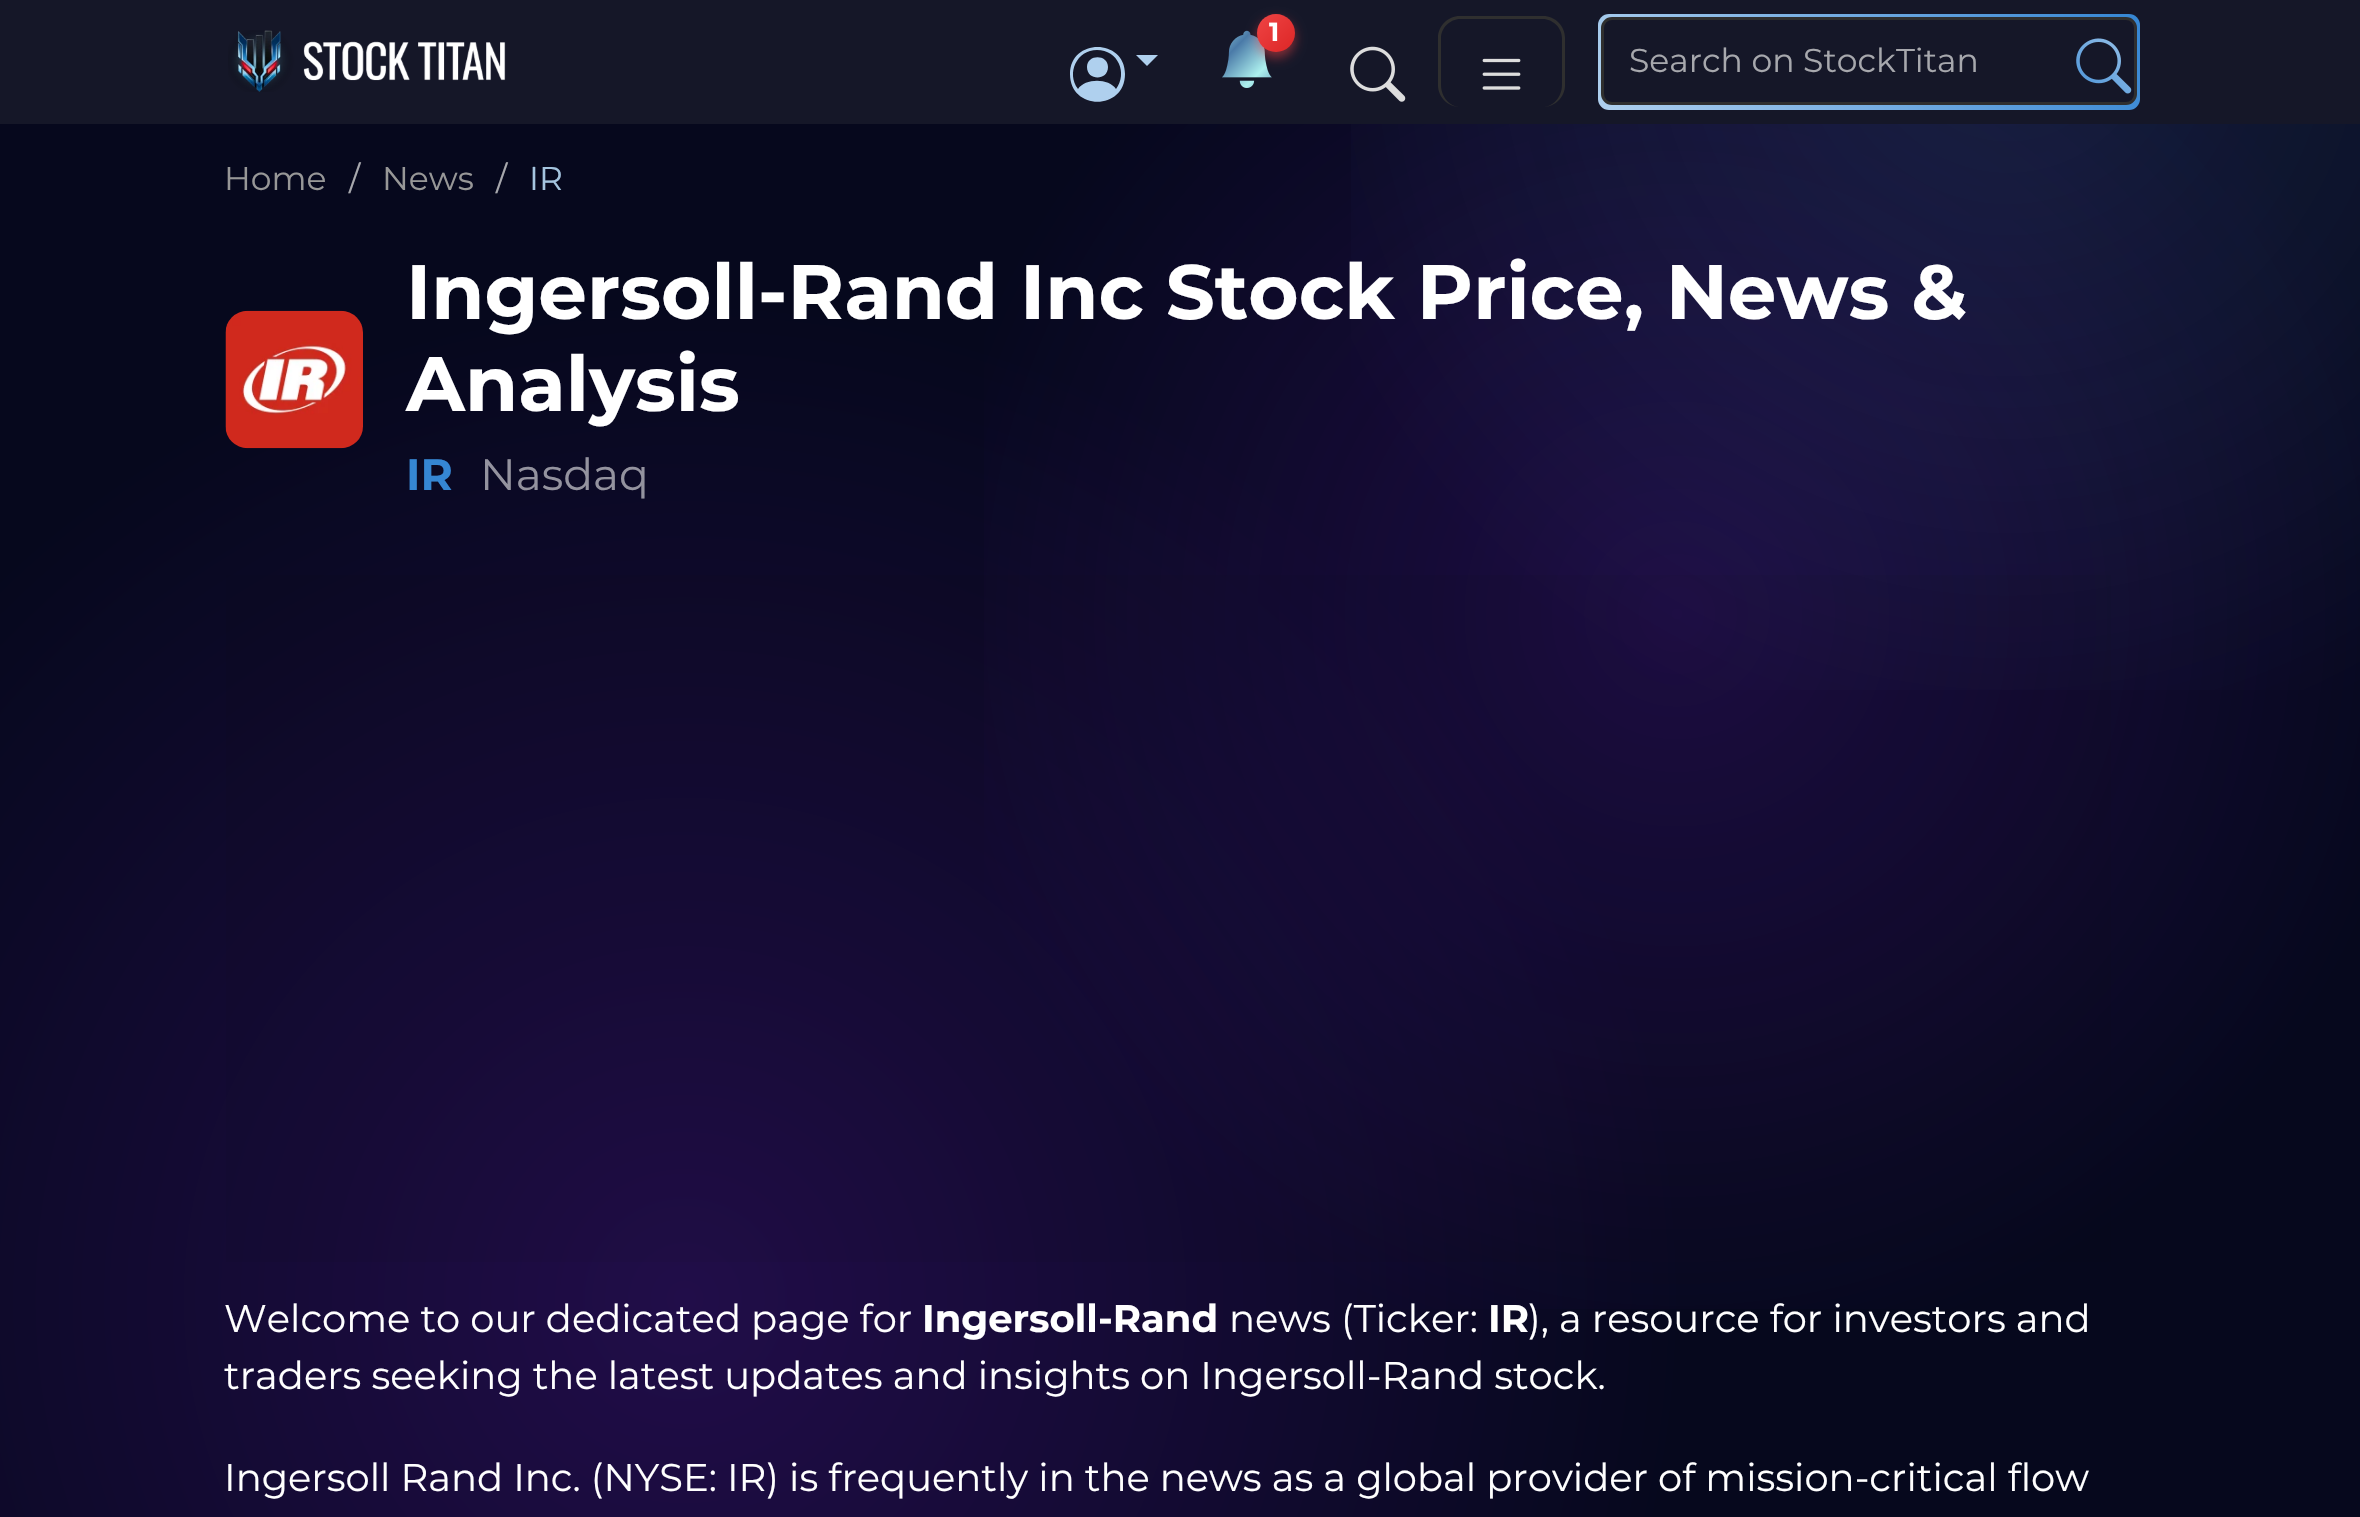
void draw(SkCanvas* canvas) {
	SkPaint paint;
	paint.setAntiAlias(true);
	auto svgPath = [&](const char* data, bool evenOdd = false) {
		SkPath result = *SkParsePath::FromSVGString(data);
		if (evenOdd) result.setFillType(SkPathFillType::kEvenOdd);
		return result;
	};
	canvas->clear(0xffffffff);
	{
		const SkColor colors[] = {0xff210d49, 0xff06081d};
		const float stops[] = {0, 0.2};
		paint.setShader(SkGradientShader::MakeRadial({685, 1299}, 5011, colors, stops, 2, SkTileMode::kClamp));
		paint.setAlpha(255);
	}
	canvas->drawRect(SkRect::MakeXYWH(0, 124, 2360, 1393), paint);
	{
		const SkColor colors[] = {0x455b17aa, 0x005b17aa};
		const float stops[] = {0, 0.15};
		paint.setShader(SkGradientShader::MakeRadial({1677, 614}, 5011, colors, stops, 2, SkTileMode::kClamp));
		paint.setAlpha(255);
	}
	canvas->drawRect(SkRect::MakeXYWH(984, 124, 1376, 1185), paint);
	{
		const SkColor colors[] = {0x304c7bbb, 0x004c7bbb};
		const float stops[] = {0, 0.15};
		paint.setShader(SkGradientShader::MakeRadial({2008, 24}, 5011, colors, stops, 2, SkTileMode::kClamp));
		paint.setAlpha(255);
	}
	canvas->drawRect(SkRect::MakeXYWH(1351, 124, 1009, 566), paint);
	paint.setShader(nullptr);
	paint.setColor(0xff151728);
	canvas->drawRect(SkRect::MakeXYWH(0, 0, 2360, 124), paint);
	canvas->drawImageRect(SkImages::DeferredFromEncodedData(SkData::MakeFromFileName("img1.png")), SkRect::MakeXYWH(228, 30, 278, 62), SkSamplingOptions());
	paint.setColor(0xffafd0ee);
	canvas->drawPath(svgPath("M1108 67C1108 81 1087 81 1087 67C1087 54 1108 54 1108 67ZM1070 74C1070 38 1125 38 1125 74C1125 111 1070 111 1070 74ZM1097 50C1077 50 1066 73 1078 89C1085 78 1109 78 1116 89C1128 73 1118 50 1097 50Z"), paint);
	canvas->drawPath(svgPath("M1136 55H1158L1147 66Z"), paint);
	canvas->drawImageRect(SkImages::DeferredFromEncodedData(SkData::MakeFromFileName("img2.png")), SkRect::MakeXYWH(1222, 30, 50, 58), SkSamplingOptions());
	paint.setColor(0x80ef4444);
	paint.setMaskFilter(SkMaskFilter::MakeBlur(kNormal_SkBlurStyle, 5.5));
	canvas->drawRoundRect(SkRect::MakeXYWH(1257, 19, 38, 39), 19, 19, paint);
	paint.setMaskFilter(nullptr);
	{
		const SkColor colors[] = {0xffef4444, 0xffdc2626};
		const float stops[] = {0, 1};
		const SkPoint ends[] = {{1257, 14}, {1295, 52}};
		paint.setShader(SkGradientShader::MakeLinear(ends, colors, stops, 2, SkTileMode::kClamp));
		paint.setAlpha(255);
	}
	canvas->drawCircle(1276, 33, 19, paint);
	SkFont f1(fontMgr->matchFamilyStyle("Montserrat", SkFontStyle::Bold()), 26);
	f1.setSubpixel(true);
	paint.setShader(nullptr);
	paint.setColor(0xffffffff);
	canvas->drawString("1", 1269, 41, f1, paint);
	canvas->drawImageRect(SkImages::DeferredFromEncodedData(SkData::MakeFromFileName("img3.png")), SkRect::MakeXYWH(1350, 46, 56, 56), SkSamplingOptions());
	paint.setColor(0xff2f2f2f);
	canvas->drawPath(svgPath("M1460 16H1543C1555 16 1565 26 1565 38V85C1565 97 1555 107 1543 107H1460C1448 107 1438 97 1438 85V38C1438 26 1448 16 1460 16ZM1460 19H1543C1553 19 1562 28 1562 38V85C1562 97 1553 107 1543 107H1460C1450 107 1441 97 1441 85V38C1441 28 1450 19 1460 19Z", true), paint);
	canvas->drawImageRect(SkImages::DeferredFromEncodedData(SkData::MakeFromFileName("img4.png")), SkRect::MakeXYWH(1482, 58, 39, 32), SkSamplingOptions());
	{
		const SkColor colors[] = {0xffafd0ee, 0xff3586d3};
		const float stops[] = {0, 1};
		const SkPoint ends[] = {{1645, 191}, {2093, -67}};
		paint.setShader(SkGradientShader::MakeLinear(ends, colors, stops, 2, SkTileMode::kClamp));
		paint.setAlpha(255);
	}
	canvas->drawRoundRect(SkRect::MakeXYWH(1598, 14, 542, 96), 11, 11, paint);
	paint.setShader(nullptr);
	paint.setColor(0xff151728);
	canvas->drawRoundRect(SkRect::MakeXYWH(1602.5, 18.5, 533, 85), 9.5, 9.5, paint);
	paint.setStroke(true);
	paint.setStrokeWidth(3);
	paint.setColor(0xff2f2f2f);
	canvas->drawRoundRect(SkRect::MakeXYWH(1602.5, 18.5, 533, 85), 9.5, 9.5, paint);
	SkFont f2(fontMgr->matchFamilyStyle("Montserrat", SkFontStyle::Normal()), 33);
	f2.setSubpixel(true);
	paint.setStroke(false);
	paint.setColor(0xffa7a8ad);
	canvas->drawString("Search on StockTitan", 1629, 72, f2, paint);
	canvas->drawImageRect(SkImages::DeferredFromEncodedData(SkData::MakeFromFileName("img5.png")), SkRect::MakeXYWH(2076, 38, 56, 56), SkSamplingOptions());
	paint.setColor(0xff979797);
	canvas->drawString("Home", 224, 190, f2, paint);
	paint.setColor(0xffa7a8ad);
	canvas->drawString("/", 349, 190, f2, paint);
	paint.setColor(0xff979797);
	canvas->drawString("News", 382, 190, f2, paint);
	paint.setColor(0xffa7a8ad);
	canvas->drawString("/", 496, 190, f2, paint);
	paint.setColor(0xffa4c4df);
	canvas->drawString("IR", 529, 190, f2, paint);
	canvas->drawImageRect(SkImages::DeferredFromEncodedData(SkData::MakeFromFileName("img6.png")), SkRect::MakeXYWH(225, 310, 138, 139), SkSamplingOptions());
	SkFont f3(fontMgr->matchFamilyStyle("Montserrat", SkFontStyle::Bold()), 77);
	f3.setSubpixel(true);
	paint.setColor(0xffffffff);
	canvas->drawString("Ingersoll-Rand Inc Stock Price, News &", 406, 319, f3, paint);
	canvas->drawString("Analysis", 406, 411, f3, paint);
	SkFont f4(fontMgr->matchFamilyStyle("Montserrat", SkFontStyle::Bold()), 44);
	f4.setSubpixel(true);
	paint.setColor(0xff3586d3);
	canvas->drawString("IR", 406, 490, f4, paint);
	SkFont f5(fontMgr->matchFamilyStyle("Montserrat", SkFontStyle::Normal()), 44);
	f5.setSubpixel(true);
	paint.setColor(0xff94939f);
	canvas->drawString("Nasdaq", 480, 490, f5, paint);
	paint.setColor(0x0d000000);
	canvas->drawRect(SkRect::MakeXYWH(226, 575, 1885, 687), paint);
	SkFont f6(fontMgr->matchFamilyStyle("Montserrat", SkFontStyle::Normal()), 38.5);
	f6.setSubpixel(true);
	paint.setColor(0xffffffff);
	canvas->drawString("Welcome to our dedicated page for", 224, 1332, f6, paint);
	SkFont f7(fontMgr->matchFamilyStyle("Montserrat", SkFontStyle::Bold()), 38.5);
	f7.setSubpixel(true);
	canvas->drawString("Ingersoll-Rand", 922, 1332, f7, paint);
	canvas->drawString("news (Ticker:", 1229, 1332, f6, paint);
	canvas->drawString("IR", 1488, 1332, f7, paint);
	canvas->drawString("), a resource for investors and", 1528, 1332, f6, paint);
	canvas->drawString("traders seeking the latest updates and insights on Ingersoll-Rand stock.", 224, 1389, f6, paint);
	canvas->drawString("Ingersoll Rand Inc. (NYSE: IR) is frequently in the news as a global provider of mission-critical flow", 224, 1491, f6, paint);
}
